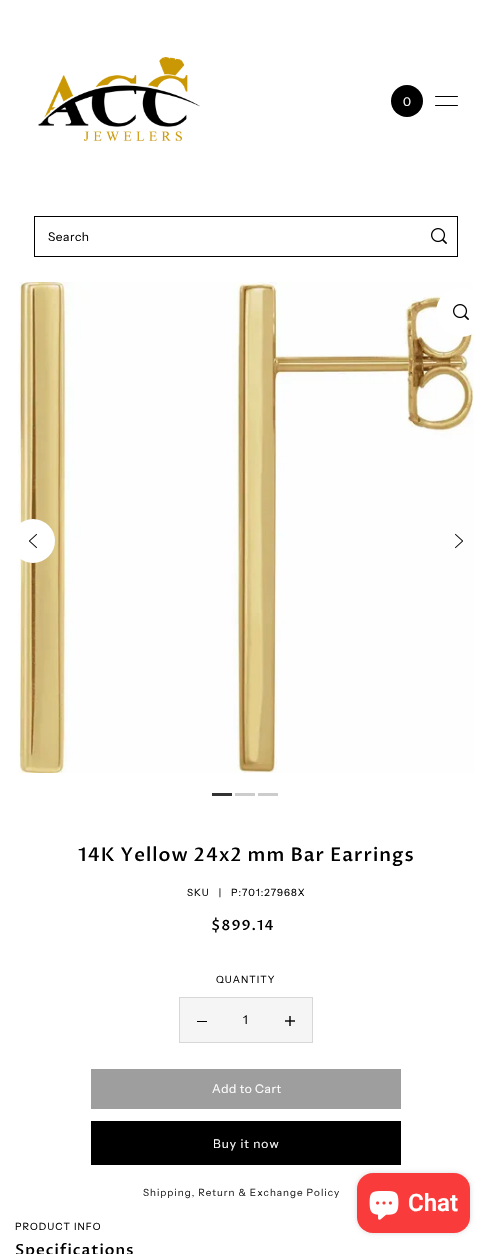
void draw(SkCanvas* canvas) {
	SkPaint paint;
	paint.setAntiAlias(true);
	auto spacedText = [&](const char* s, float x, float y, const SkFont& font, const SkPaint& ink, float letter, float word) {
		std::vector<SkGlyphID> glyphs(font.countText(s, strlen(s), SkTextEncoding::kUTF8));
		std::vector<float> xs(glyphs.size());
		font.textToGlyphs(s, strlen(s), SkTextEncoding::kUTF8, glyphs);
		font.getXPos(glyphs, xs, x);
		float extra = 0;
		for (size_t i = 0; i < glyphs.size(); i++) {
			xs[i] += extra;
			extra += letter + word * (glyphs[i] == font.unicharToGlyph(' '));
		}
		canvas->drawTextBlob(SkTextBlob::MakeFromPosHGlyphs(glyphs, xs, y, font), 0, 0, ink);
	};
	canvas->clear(0xffffffff);
	canvas->drawImageRect(SkImages::DeferredFromEncodedData(SkData::MakeFromFileName("img1.png")), SkRect::MakeXYWH(38, 57, 162, 85), SkSamplingOptions());
	paint.setColor(0xff000000);
	canvas->drawCircle(407, 101, 16, paint);
	SkFont f1(fontMgr->matchFamilyStyle("Instrument Sans", SkFontStyle::Normal()), 12);
	f1.setSubpixel(true);
	paint.setColor(0xffffffff);
	spacedText("0", 403, 106, f1, paint, 0.5, 0);
	paint.setColor(0xff000000);
	canvas->drawRoundRect(SkRect::MakeXYWH(435, 96, 23, 1), 0.5, 0.5, paint);
	canvas->drawRoundRect(SkRect::MakeXYWH(435, 105, 23, 1), 0.5, 0.5, paint);
	paint.setStroke(true);
	paint.setStrokeWidth(1);
	canvas->drawRect(SkRect::MakeXYWH(34.5, 216.5, 423, 40), paint);
	paint.setStroke(false);
	spacedText("Search", 48, 241, f1, paint, 0.5, 0);
	canvas->drawImageRect(SkImages::DeferredFromEncodedData(SkData::MakeFromFileName("img2.png")), SkRect::MakeXYWH(431, 228, 16, 16), SkSamplingOptions());
	canvas->drawImageRect(SkImages::DeferredFromEncodedData(SkData::MakeFromFileName("img3.png")), SkRect::MakeXYWH(18, 282, 456, 491), SkSamplingOptions());
	paint.setColor(0xffffffff);
	canvas->drawCircle(461, 312, 25, paint);
	canvas->drawImageRect(SkImages::DeferredFromEncodedData(SkData::MakeFromFileName("img2.png")), SkRect::MakeXYWH(453, 304, 16, 16), SkSamplingOptions());
	canvas->drawCircle(33, 541, 22, paint);
	canvas->drawImageRect(SkImages::DeferredFromEncodedData(SkData::MakeFromFileName("img4.png")), SkRect::MakeXYWH(29, 533, 8, 16), SkSamplingOptions());
	canvas->drawImageRect(SkImages::DeferredFromEncodedData(SkData::MakeFromFileName("img5.png")), SkRect::MakeXYWH(455, 533, 8, 16), SkSamplingOptions());
	paint.setColor(0xff333333);
	canvas->drawRect(SkRect::MakeXYWH(212, 793, 20, 3), paint);
	paint.setColor(0xffcccccc);
	canvas->drawRect(SkRect::MakeXYWH(235, 793, 20, 3), paint);
	canvas->drawRect(SkRect::MakeXYWH(258, 793, 20, 3), paint);
	SkFont f2(fontMgr->matchFamilyStyle("Proza Libre", SkFontStyle(500, SkFontStyle::kNormal_Width, SkFontStyle::kUpright_Slant)), 18.75);
	f2.setSubpixel(true);
	paint.setColor(0xff000000);
	spacedText("14K Yellow 24x2 mm Bar Earrings", 78, 861, f2, paint, 1, 0);
	SkFont f3(fontMgr->matchFamilyStyle("Instrument Sans", SkFontStyle::Normal()), 9.9);
	f3.setSubpixel(true);
	spacedText("SKU   |", 187, 896, f3, paint, 1, 0);
	spacedText("P:701:27968X", 231, 896, f3, paint, 1, 0);
	SkFont f4(fontMgr->matchFamilyStyle("Proza Libre", SkFontStyle(500, SkFontStyle::kNormal_Width, SkFontStyle::kUpright_Slant)), 14);
	f4.setSubpixel(true);
	spacedText("$899.14", 211, 930, f4, paint, 1, 0);
	spacedText("QUANTITY", 216, 983, f3, paint, 1, 0);
	paint.setColor(0xfff5f5f5);
	canvas->drawRect(SkRect::MakeXYWH(179.5, 997.5, 133, 45), paint);
	paint.setStroke(true);
	paint.setColor(0xffd7d7d7);
	canvas->drawRect(SkRect::MakeXYWH(179.5, 997.5, 133, 45), paint);
	paint.setStroke(false);
	paint.setColor(0xff000000);
	canvas->drawRect(SkRect::MakeXYWH(197, 1021, 10, 1), paint);
	spacedText("1", 243, 1024, f1, paint, 0.5, 0);
	canvas->drawImageRect(SkImages::DeferredFromEncodedData(SkData::MakeFromFileName("img6.png")), SkRect::MakeXYWH(285, 1016, 10, 10), SkSamplingOptions());
	paint.setColor(0xff9e9e9e);
	canvas->drawRect(SkRect::MakeXYWH(91, 1069, 310, 40), paint);
	paint.setColor(0xffffffff);
	spacedText("Add to Cart", 212, 1093, f1, paint, 0.5, 0);
	paint.setColor(0xff000000);
	canvas->drawRect(SkRect::MakeXYWH(91, 1121, 310, 44), paint);
	paint.setColor(0xffffffff);
	spacedText("Buy it now", 213, 1148, f1, paint, 1, 0);
	paint.setColor(0xff222222);
	spacedText("Shipping, Return & Exchange Policy", 143, 1196, f3, paint, 1, 0);
	paint.setColor(0xff000000);
	spacedText("PRODUCT INFO", 15, 1230, f3, paint, 1, 0);
	SkFont f5(fontMgr->matchFamilyStyle("Proza Libre", SkFontStyle(500, SkFontStyle::kNormal_Width, SkFontStyle::kUpright_Slant)), 15.25);
	f5.setSubpixel(true);
	spacedText("Specifications", 15, 1255, f5, paint, 1, 0);
	paint.setColor(0x26000000);
	paint.setMaskFilter(SkMaskFilter::MakeBlur(kNormal_SkBlurStyle, 2.5));
	canvas->drawRoundRect(SkRect::MakeXYWH(357, 1173, 113, 60), 16, 16, paint);
	paint.setMaskFilter(nullptr);
	paint.setColor(0xfffa3b3b);
	canvas->drawRoundRect(SkRect::MakeXYWH(357, 1173, 113, 60), 16, 16, paint);
	canvas->drawImageRect(SkImages::DeferredFromEncodedData(SkData::MakeFromFileName("img7.png")), SkRect::MakeXYWH(369, 1191, 30, 29), SkSamplingOptions());
	SkFont f6(fontMgr->matchFamilyStyle("Roboto", SkFontStyle(600, SkFontStyle::kNormal_Width, SkFontStyle::kUpright_Slant)), 24);
	f6.setSubpixel(true);
	paint.setColor(0xffffffff);
	canvas->drawString("Chat", 408, 1211, f6, paint);
}
